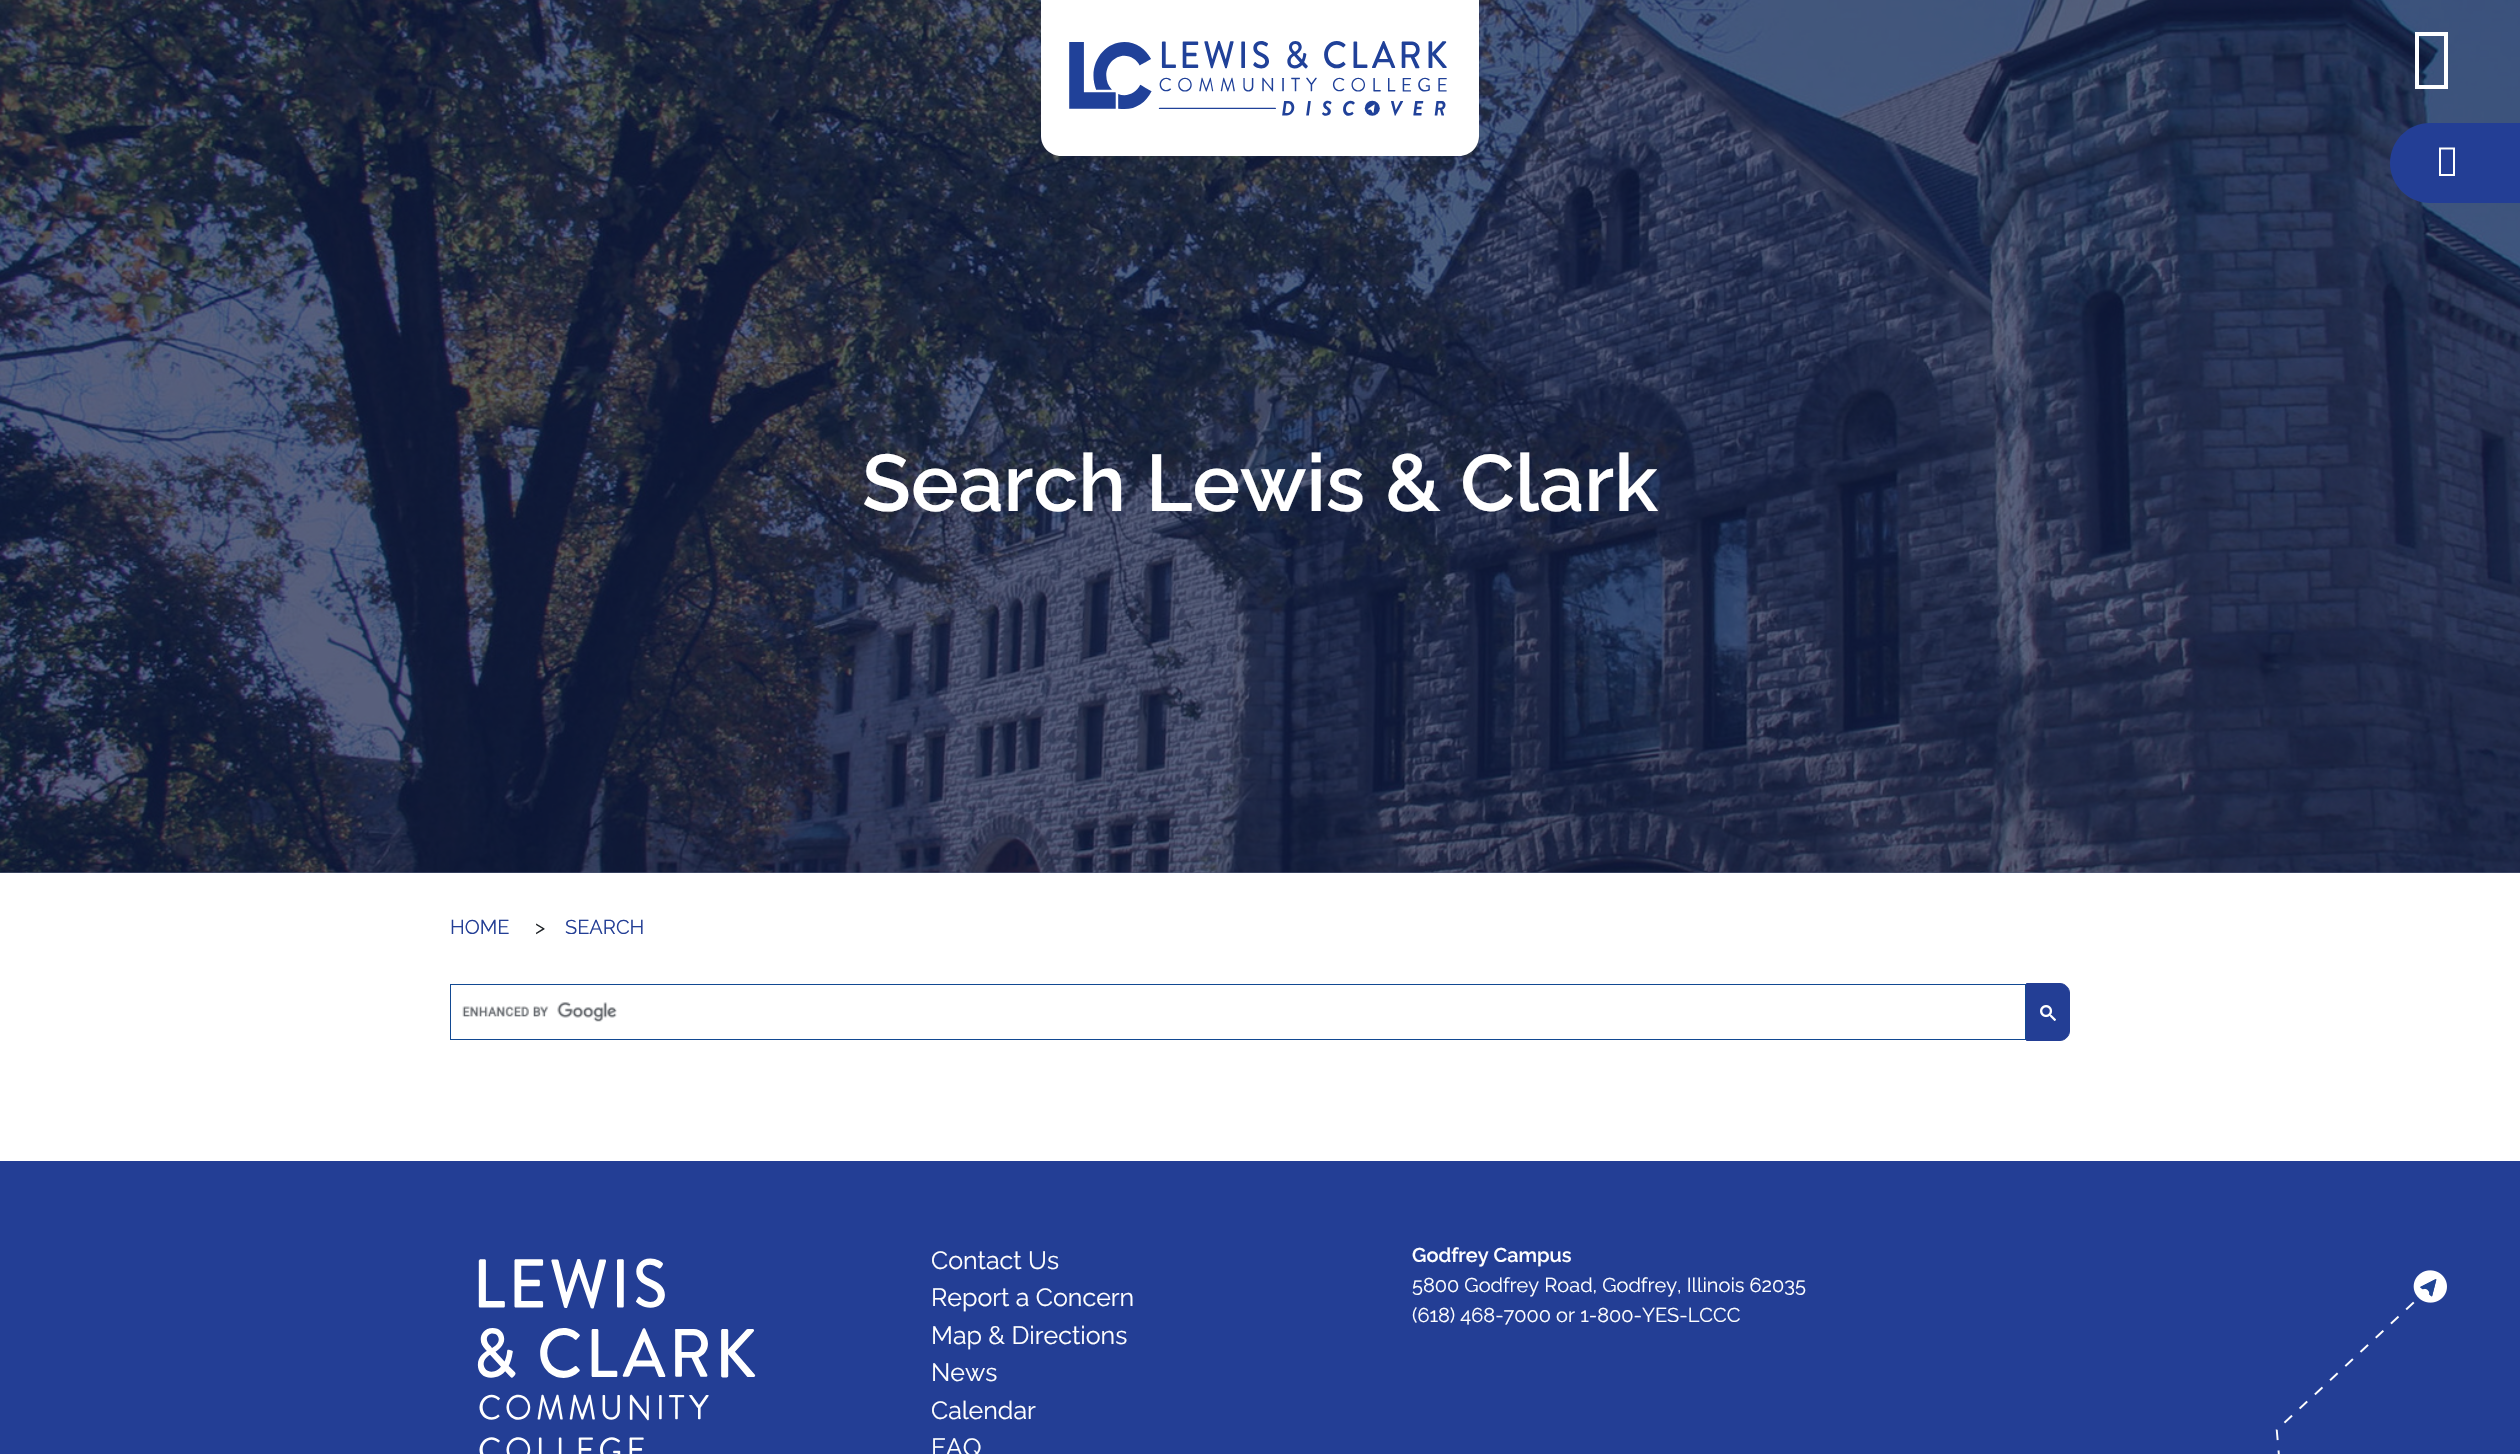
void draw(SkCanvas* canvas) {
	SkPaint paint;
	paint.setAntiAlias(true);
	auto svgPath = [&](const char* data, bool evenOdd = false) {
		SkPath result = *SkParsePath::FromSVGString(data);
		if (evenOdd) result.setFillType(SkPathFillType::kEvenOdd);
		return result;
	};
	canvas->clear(0xffffffff);
	paint.setColor(0xff545d7c);
	canvas->drawRect(SkRect::MakeXYWH(0, 872, 2520, 1), paint);
	canvas->drawImageRect(SkImages::DeferredFromEncodedData(SkData::MakeFromFileName("img1.png")), SkRect::MakeXYWH(0, 0, 2520, 873), SkSamplingOptions());
	paint.setColor(0xffffffff);
	canvas->drawPath(svgPath("M1041 0H1479V136C1479 147 1470 156 1459 156H1061C1050 156 1041 147 1041 136Z"), paint);
	canvas->drawImageRect(SkImages::DeferredFromEncodedData(SkData::MakeFromFileName("img2.png")), SkRect::MakeXYWH(1069, 41, 378, 75), SkSamplingOptions());
	canvas->drawPath(svgPath("M2415 89V32H2448V89ZM2419 85H2444V36H2419Z"), paint);
	paint.setColor(0xff233e95);
	canvas->drawPath(svgPath("M2430 123H2520V203H2430C2408 203 2390 185 2390 163C2390 141 2408 123 2430 123Z"), paint);
	paint.setColor(0xffffffff);
	canvas->drawPath(svgPath("M2439 176V147.5H2455V176ZM2441 174H2453V149.5H2441Z"), paint);
	SkFont f1(fontMgr->matchFamilyStyle("Raleway", SkFontStyle(600, SkFontStyle::kNormal_Width, SkFontStyle::kUpright_Slant)), 80);
	f1.setSubpixel(true);
	canvas->drawString("Search Lewis & Clark", 862, 511, f1, paint);
	SkFont f2(fontMgr->matchFamilyStyle("Raleway", SkFontStyle::Normal()), 20);
	f2.setSubpixel(true);
	paint.setColor(0xff233e95);
	canvas->drawString("HOME", 450, 934, f2, paint);
	paint.setColor(0xff212529);
	canvas->drawString(">", 535, 934, f2, paint);
	paint.setColor(0xff233e95);
	canvas->drawString("SEARCH", 565, 934, f2, paint);
	paint.setStroke(true);
	paint.setStrokeWidth(1);
	paint.setColor(0xff124992);
	canvas->drawRect(SkRect::MakeXYWH(450.5, 984.5, 1575, 55), paint);
	canvas->drawImageRect(SkImages::DeferredFromEncodedData(SkData::MakeFromFileName("img3.png")), SkRect::MakeXYWH(462, 1002, 155, 20), SkSamplingOptions());
	paint.setStroke(false);
	paint.setColor(0xff233e95);
	canvas->drawPath(svgPath("M2026.5 983.5H2060C2065 983.5 2069.5 988 2069.5 993V1031C2069.5 1036 2065 1040.5 2060 1040.5H2026.5Z"), paint);
	paint.setStroke(true);
	canvas->drawPath(svgPath("M2026.5 983.5H2060C2065 983.5 2069.5 988 2069.5 993V1031C2069.5 1036 2065 1040.5 2060 1040.5H2026.5Z"), paint);
	canvas->drawImageRect(SkImages::DeferredFromEncodedData(SkData::MakeFromFileName("img4.png")), SkRect::MakeXYWH(2040, 1005, 16, 16), SkSamplingOptions());
	paint.setStroke(false);
	canvas->drawRect(SkRect::MakeXYWH(0, 1161, 2520, 293), paint);
	canvas->drawImageRect(SkImages::DeferredFromEncodedData(SkData::MakeFromFileName("img5.png")), SkRect::MakeXYWH(2275, 1270, 172, 184), SkSamplingOptions());
	canvas->drawImageRect(SkImages::DeferredFromEncodedData(SkData::MakeFromFileName("img6.png")), SkRect::MakeXYWH(477, 1258, 279, 196), SkSamplingOptions());
	SkFont f3(fontMgr->matchFamilyStyle("Raleway", SkFontStyle::Normal()), 25);
	f3.setSubpixel(true);
	paint.setColor(0xffffffff);
	canvas->drawString("Contact Us", 931, 1269, f3, paint);
	canvas->drawString("Report a Concern", 931, 1306, f3, paint);
	canvas->drawString("Map & Directions", 931, 1344, f3, paint);
	canvas->drawString("News", 931, 1381, f3, paint);
	canvas->drawString("Calendar", 931, 1419, f3, paint);
	canvas->drawString("FAQ", 931, 1456, f3, paint);
	SkFont f4(fontMgr->matchFamilyStyle("Raleway", SkFontStyle(600, SkFontStyle::kNormal_Width, SkFontStyle::kUpright_Slant)), 20);
	f4.setSubpixel(true);
	canvas->drawString("Godfrey Campus", 1412, 1262, f4, paint);
	canvas->drawString("5800 Godfrey Road, Godfrey, Illinois 62035", 1412, 1292, f2, paint);
	canvas->drawString("(618) 468-7000 or 1-800-YES-LCCC", 1412, 1322, f2, paint);
}
